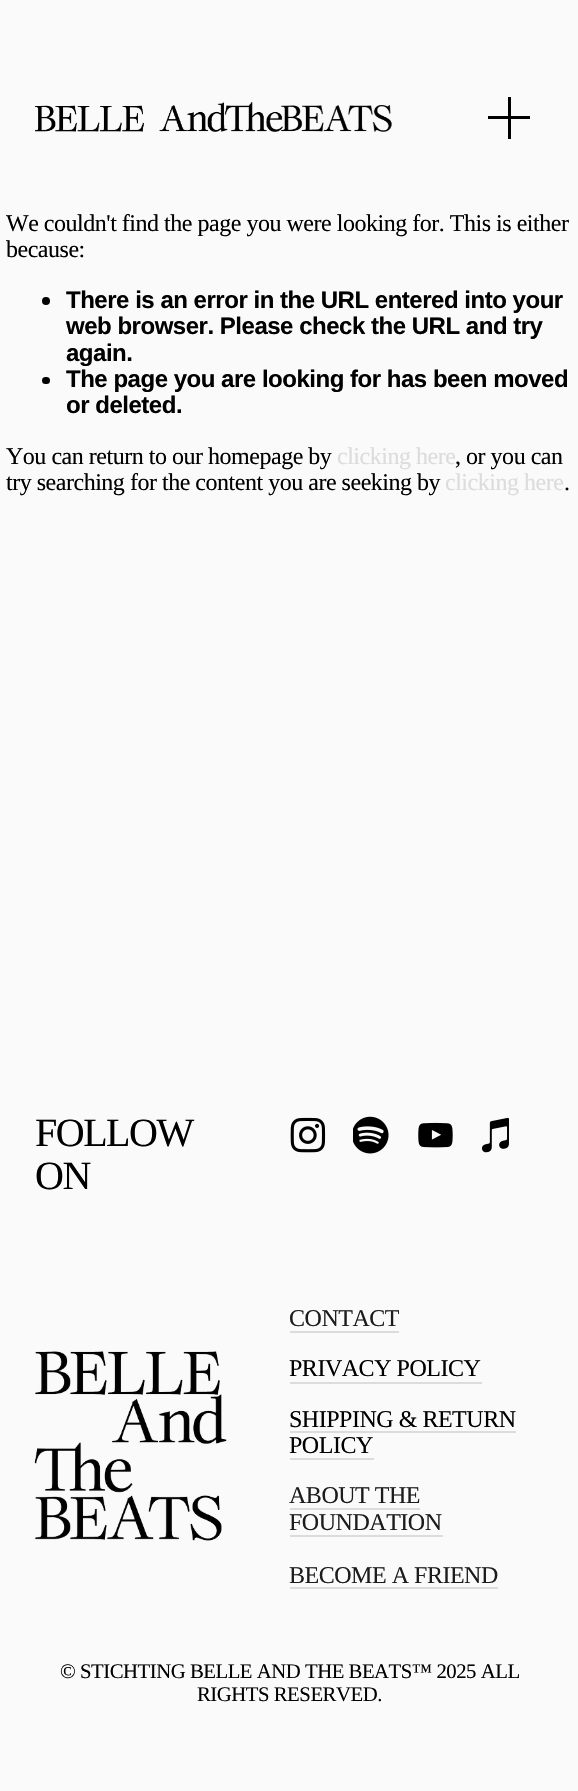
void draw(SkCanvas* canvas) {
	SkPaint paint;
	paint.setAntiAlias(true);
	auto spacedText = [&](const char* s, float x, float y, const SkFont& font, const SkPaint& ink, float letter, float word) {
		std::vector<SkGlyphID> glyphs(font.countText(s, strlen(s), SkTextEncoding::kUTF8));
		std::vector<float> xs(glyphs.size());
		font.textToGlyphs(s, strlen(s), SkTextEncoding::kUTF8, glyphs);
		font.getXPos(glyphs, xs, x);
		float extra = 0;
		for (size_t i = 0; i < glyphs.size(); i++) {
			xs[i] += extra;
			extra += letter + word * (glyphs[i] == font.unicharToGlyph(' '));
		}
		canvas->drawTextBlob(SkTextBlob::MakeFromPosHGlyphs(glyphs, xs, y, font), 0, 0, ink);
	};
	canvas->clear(0xfffafafa);
	canvas->drawImageRect(SkImages::DeferredFromEncodedData(SkData::MakeFromFileName("img1.png")), SkRect::MakeXYWH(35, 102, 357, 30), SkSamplingOptions());
	paint.setColor(0xff000000);
	canvas->drawRect(SkRect::MakeXYWH(488, 116, 42, 3), paint);
	canvas->drawRect(SkRect::MakeXYWH(508, 97, 3, 42), paint);
	SkFont f1(fontMgr->matchFamilyStyle("Liberation Serif", SkFontStyle::Normal()), 24);
	f1.setSubpixel(true);
	spacedText("We couldn't find the page you were looking for. This is either", 6, 231, f1, paint, -0.48, 0);
	spacedText("because:", 6, 257, f1, paint, -0.48, 0);
	canvas->drawCircle(46, 301, 4, paint);
	SkFont f2(fontMgr->matchFamilyStyle("Liberation Sans", SkFontStyle::Bold()), 24);
	f2.setSubpixel(true);
	spacedText("There is an error in the URL entered into your", 66, 308, f2, paint, -0.48, 0);
	spacedText("web browser. Please check the URL and try", 66, 334, f2, paint, -0.48, 0);
	spacedText("again.", 66, 361, f2, paint, -0.48, 0);
	canvas->drawRoundRect(SkRect::MakeXYWH(42, 377, 8, 7), 3.5, 3.5, paint);
	spacedText("The page you are looking for has been moved", 66, 387, f2, paint, -0.48, 0);
	spacedText("or deleted.", 66, 413, f2, paint, -0.48, 0);
	spacedText("You can return to our homepage by", 6, 464, f1, paint, -0.48, 0);
	paint.setColor(0xffdcdcdc);
	spacedText("clicking here", 337, 464, f1, paint, -0.48, 0);
	paint.setColor(0xff000000);
	spacedText(", or you can", 455, 464, f1, paint, -0.48, 0);
	spacedText("try searching for the content you are seeking by", 6, 490, f1, paint, -0.48, 0);
	paint.setColor(0xffdcdcdc);
	spacedText("clicking here", 445, 490, f1, paint, -0.48, 0);
	paint.setColor(0xff000000);
	spacedText(".", 564, 490, f1, paint, -0.48, 0);
	SkFont f3(fontMgr->matchFamilyStyle("Liberation Serif", SkFontStyle::Normal()), 40);
	f3.setSubpixel(true);
	spacedText("FOLLOW", 35, 1146, f3, paint, -1.5, 0);
	spacedText("ON", 35, 1189, f3, paint, -1.5, 0);
	canvas->drawImageRect(SkImages::DeferredFromEncodedData(SkData::MakeFromFileName("img2.png")), SkRect::MakeXYWH(290, 1117, 36, 36), SkSamplingOptions());
	canvas->drawImageRect(SkImages::DeferredFromEncodedData(SkData::MakeFromFileName("img3.png")), SkRect::MakeXYWH(353, 1116, 36, 38), SkSamplingOptions());
	canvas->drawImageRect(SkImages::DeferredFromEncodedData(SkData::MakeFromFileName("img4.png")), SkRect::MakeXYWH(418, 1122, 35, 26), SkSamplingOptions());
	canvas->drawImageRect(SkImages::DeferredFromEncodedData(SkData::MakeFromFileName("img5.png")), SkRect::MakeXYWH(482, 1117, 27, 36), SkSamplingOptions());
	canvas->drawImageRect(SkImages::DeferredFromEncodedData(SkData::MakeFromFileName("img6.png")), SkRect::MakeXYWH(34, 1351, 193, 190), SkSamplingOptions());
	paint.setColor(0xff1c1c1c);
	spacedText("CONTACT", 289, 1326, f1, paint, -0.48, 0);
	paint.setColor(0xffdcdcdc);
	canvas->drawRect(SkRect::MakeXYWH(290, 1331, 109, 2), paint);
	paint.setColor(0xff000000);
	spacedText("PRIVACY POLICY", 289, 1376, f1, paint, -0.48, 0);
	paint.setColor(0xffdcdcdc);
	canvas->drawRect(SkRect::MakeXYWH(290, 1382, 192, 2), paint);
	paint.setColor(0xff000000);
	spacedText("SHIPPING & RETURN", 289, 1427, f1, paint, -0.48, 0);
	paint.setColor(0xffdcdcdc);
	canvas->drawRect(SkRect::MakeXYWH(290, 1431, 226, 2), paint);
	paint.setColor(0xff000000);
	spacedText("POLICY", 289, 1453, f1, paint, -0.48, 0);
	paint.setColor(0xffdcdcdc);
	canvas->drawRect(SkRect::MakeXYWH(290, 1458, 84, 2), paint);
	paint.setColor(0xff1c1c1c);
	spacedText("ABOUT THE", 289, 1503, f1, paint, -0.48, 0);
	paint.setColor(0xffdcdcdc);
	canvas->drawRect(SkRect::MakeXYWH(290, 1508, 130, 2), paint);
	paint.setColor(0xff1c1c1c);
	spacedText("FOUNDATION", 289, 1530, f1, paint, -0.48, 0);
	paint.setColor(0xffdcdcdc);
	canvas->drawRect(SkRect::MakeXYWH(290, 1535, 153, 2), paint);
	paint.setColor(0xff1c1c1c);
	spacedText("BECOME A FRIEND", 289, 1583, f1, paint, -0.48, 0);
	paint.setColor(0xffdcdcdc);
	canvas->drawRect(SkRect::MakeXYWH(290, 1587, 208, 2), paint);
	SkFont f4(fontMgr->matchFamilyStyle("Liberation Serif", SkFontStyle::Normal()), 20.75);
	f4.setSubpixel(true);
	paint.setColor(0xff000000);
	spacedText("© STICHTING BELLE AND THE BEATS™ 2025 ALL", 60, 1678, f4, paint, -0.48, 0);
	spacedText("RIGHTS RESERVED.", 197, 1701, f4, paint, -0.48, 0);
}
